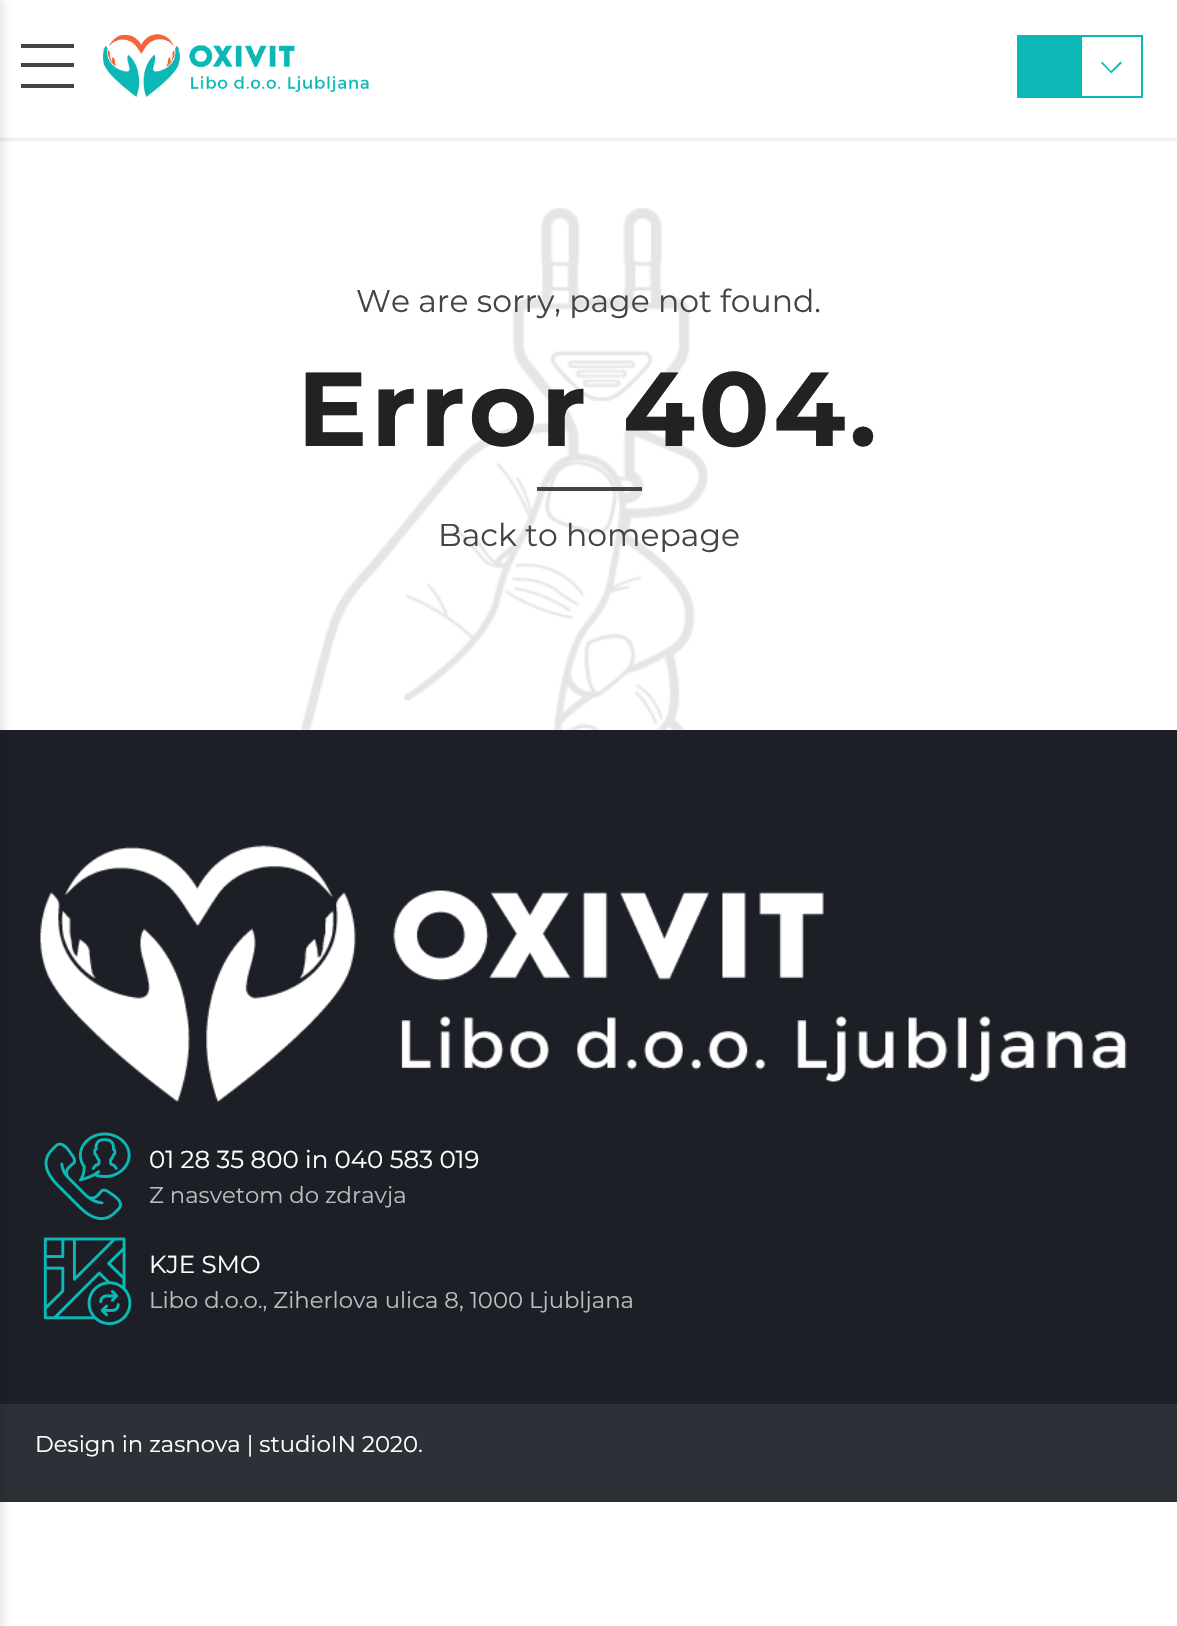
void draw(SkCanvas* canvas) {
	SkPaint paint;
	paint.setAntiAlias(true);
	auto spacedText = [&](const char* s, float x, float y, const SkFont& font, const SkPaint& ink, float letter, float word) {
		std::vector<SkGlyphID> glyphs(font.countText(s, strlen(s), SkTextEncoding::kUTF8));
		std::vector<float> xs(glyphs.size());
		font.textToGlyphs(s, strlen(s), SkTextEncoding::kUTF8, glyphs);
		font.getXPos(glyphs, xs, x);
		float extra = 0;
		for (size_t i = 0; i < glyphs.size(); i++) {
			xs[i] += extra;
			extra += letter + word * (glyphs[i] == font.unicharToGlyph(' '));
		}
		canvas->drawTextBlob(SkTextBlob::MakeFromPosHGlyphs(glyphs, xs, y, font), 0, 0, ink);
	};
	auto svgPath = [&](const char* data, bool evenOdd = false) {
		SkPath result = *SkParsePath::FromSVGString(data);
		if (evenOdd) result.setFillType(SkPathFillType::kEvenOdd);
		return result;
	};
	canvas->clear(0xffffffff);
	paint.setColor(0xff1d1f27);
	canvas->drawRect(SkRect::MakeXYWH(0, 730, 1177, 674), paint);
	paint.setColor(0xff2e3037);
	canvas->drawRect(SkRect::MakeXYWH(0, 1404, 1177, 98), paint);
	paint.setColor(0x1a000000);
	paint.setMaskFilter(SkMaskFilter::MakeBlur(kNormal_SkBlurStyle, 4.5));
	canvas->drawRect(SkRect::MakeXYWH(-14, 0, 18, 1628), paint);
	paint.setMaskFilter(nullptr);
	canvas->save();
	canvas->clipRect(SkRect::MakeXYWH(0, 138, 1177, 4));
	paint.setMaskFilter(SkMaskFilter::MakeBlur(kNormal_SkBlurStyle, 2.5));
	canvas->drawRect(SkRect::MakeXYWH(0, 2, 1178, 138), paint);
	paint.setMaskFilter(nullptr);
	canvas->restore();
	paint.setColor(0xff444444);
	canvas->drawRect(SkRect::MakeXYWH(21, 44, 53, 4), paint);
	canvas->drawRect(SkRect::MakeXYWH(21, 63, 53, 4), paint);
	canvas->drawRect(SkRect::MakeXYWH(21, 84, 53, 4), paint);
	canvas->drawImageRect(SkImages::DeferredFromEncodedData(SkData::MakeFromFileName("img1.png")), SkRect::MakeXYWH(103, 34, 266, 63), SkSamplingOptions());
	paint.setColor(0xff0cb8b6);
	canvas->drawRect(SkRect::MakeXYWH(1017, 35, 63, 63), paint);
	paint.setStroke(true);
	paint.setStrokeWidth(2);
	canvas->drawRect(SkRect::MakeXYWH(1081, 36, 61, 61), paint);
	paint.setStroke(false);
	canvas->drawPath(svgPath("M1110 72L1111 73.5L1122 63L1120.5 61.5L1111 71L1102 61.5L1101 63Z"), paint);
	canvas->drawImageRect(SkImages::DeferredFromEncodedData(SkData::MakeFromFileName("img2.png")), SkRect::MakeXYWH(301, 208, 407, 522), SkSamplingOptions());
	SkFont f1(fontMgr->matchFamilyStyle("Montserrat", SkFontStyle::Normal()), 31.5);
	f1.setSubpixel(true);
	paint.setColor(0xff444444);
	canvas->drawString("We are sorry, page not found.", 356, 312, f1, paint);
	SkFont f2(fontMgr->matchFamilyStyle("Montserrat", SkFontStyle::Bold()), 105);
	f2.setSubpixel(true);
	paint.setColor(0xff222222);
	spacedText("Error 404.", 297, 446, f2, paint, 3.5, 0);
	paint.setColor(0xff444444);
	canvas->drawRect(SkRect::MakeXYWH(537, 487, 105, 4), paint);
	canvas->drawString("Back to homepage", 438, 546, f1, paint);
	canvas->drawImageRect(SkImages::DeferredFromEncodedData(SkData::MakeFromFileName("img3.png")), SkRect::MakeXYWH(40, 845, 1087, 258), SkSamplingOptions());
	canvas->drawImageRect(SkImages::DeferredFromEncodedData(SkData::MakeFromFileName("img4.png")), SkRect::MakeXYWH(44, 1132, 87, 89), SkSamplingOptions());
	SkFont f3(fontMgr->matchFamilyStyle("Montserrat", SkFontStyle::Normal()), 24.5);
	f3.setSubpixel(true);
	paint.setColor(0xffffffff);
	canvas->drawString("01 28 35 800 in 040 583 019", 149, 1168, f3, paint);
	SkFont f4(fontMgr->matchFamilyStyle("Montserrat", SkFontStyle::Normal()), 22.75);
	f4.setSubpixel(true);
	paint.setColor(0xffbbbcbe);
	canvas->drawString("Z nasvetom do zdravja", 149, 1203, f4, paint);
	canvas->drawImageRect(SkImages::DeferredFromEncodedData(SkData::MakeFromFileName("img5.png")), SkRect::MakeXYWH(43, 1237, 89, 89), SkSamplingOptions());
	paint.setColor(0xffffffff);
	canvas->drawString("KJE SMO", 149, 1273, f3, paint);
	paint.setColor(0xffbbbcbe);
	canvas->drawString("Libo d.o.o., Ziherlova ulica 8, 1000 Ljubljana", 149, 1308, f4, paint);
	paint.setColor(0xffffffff);
	canvas->drawString("Design in zasnova | studioIN 2020.", 35, 1452, f4, paint);
}
